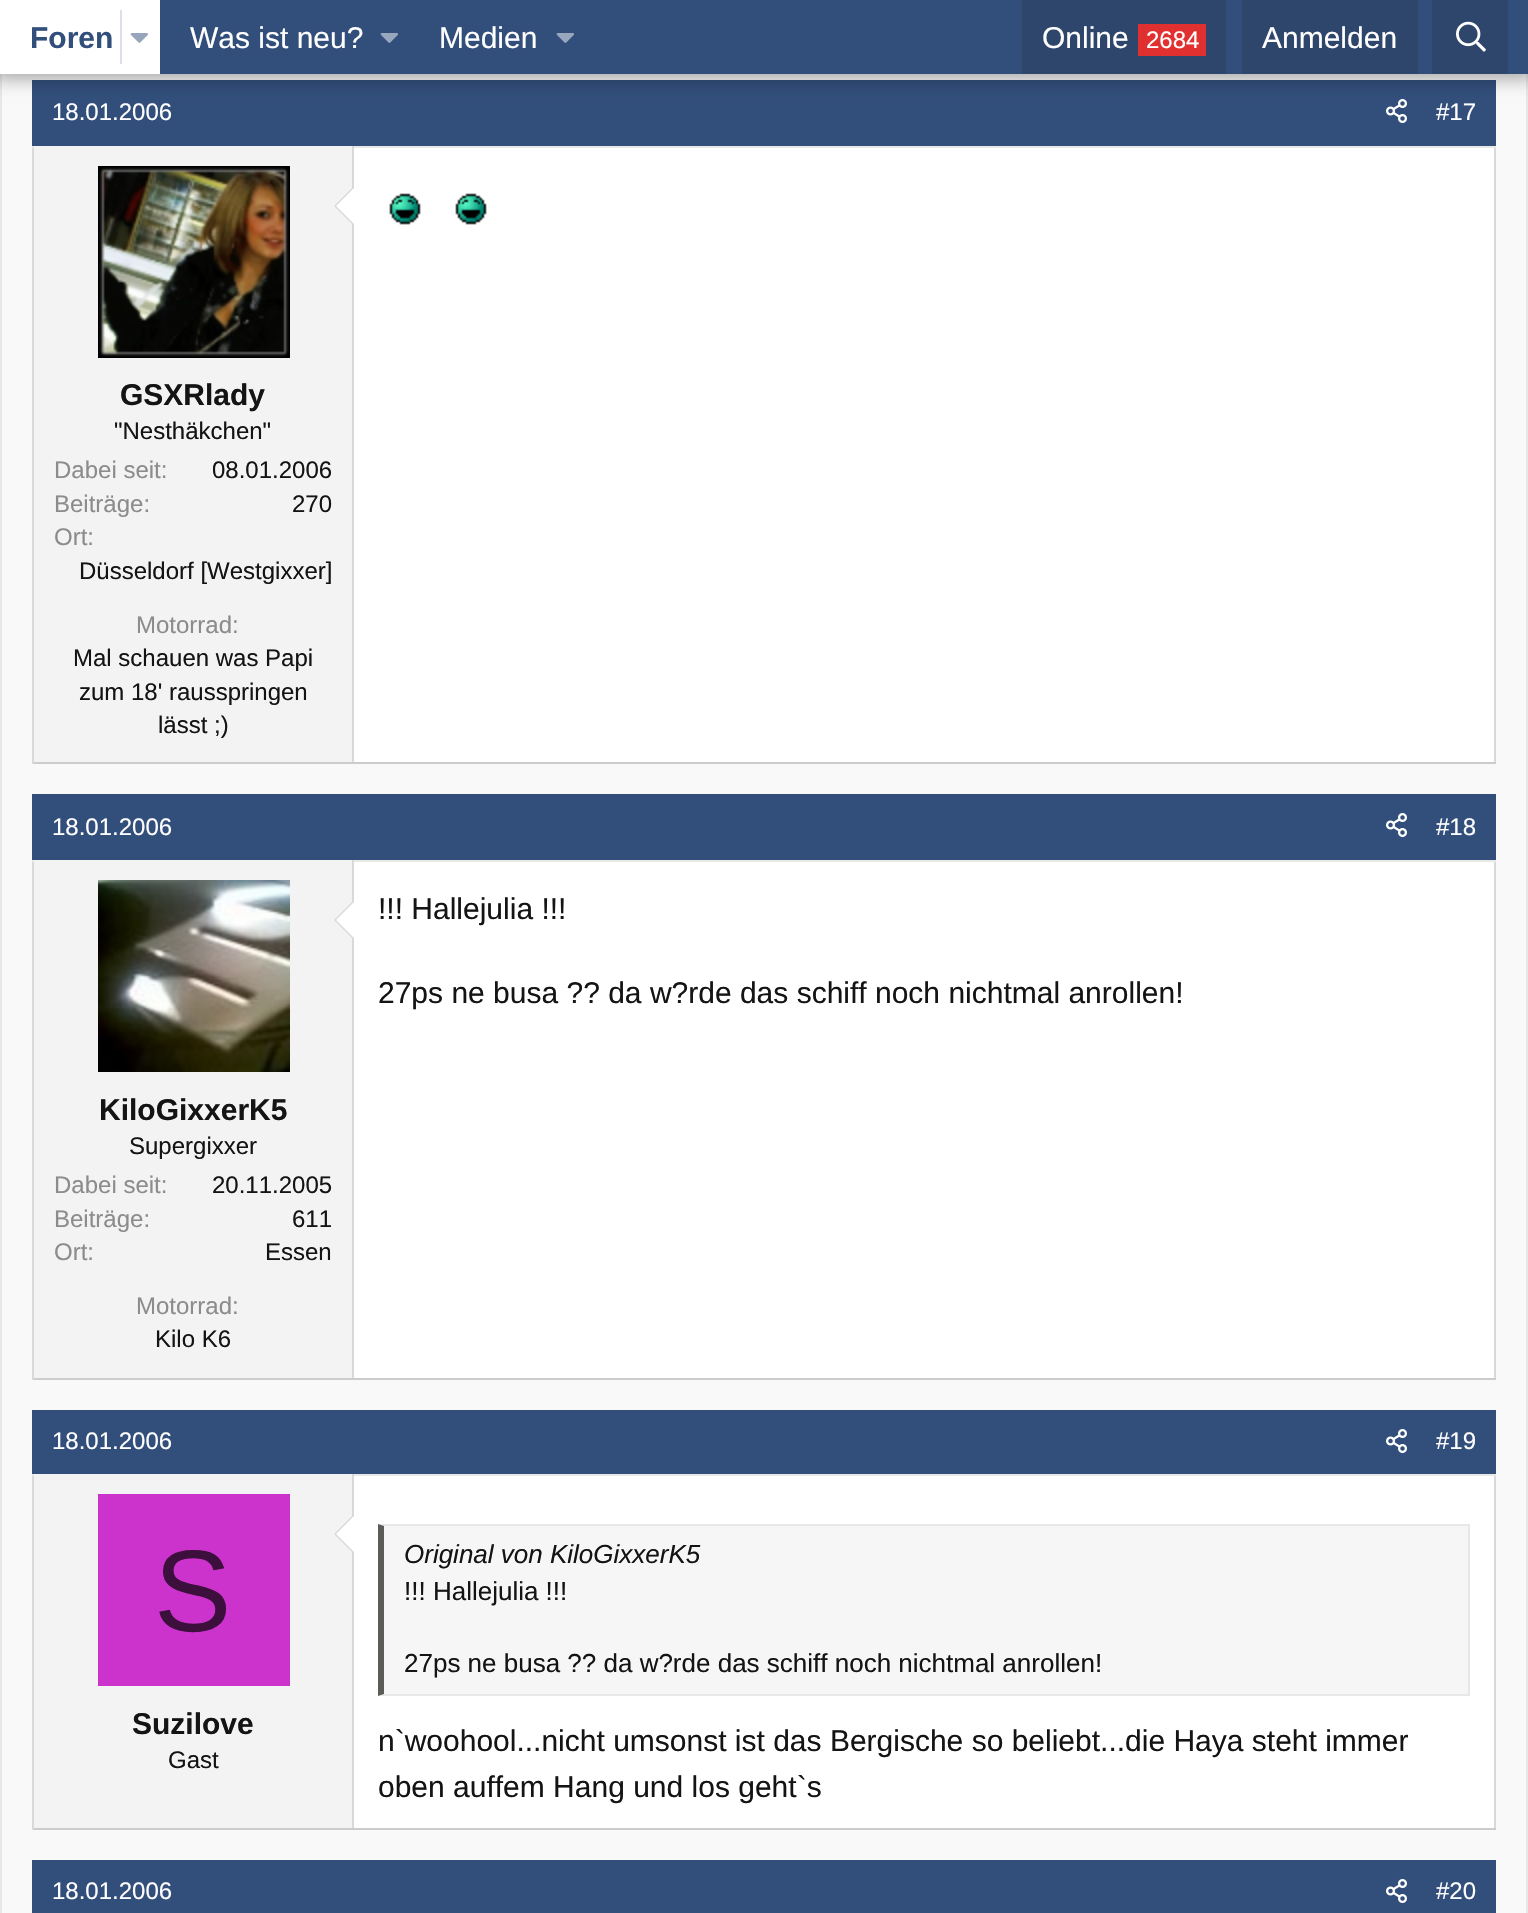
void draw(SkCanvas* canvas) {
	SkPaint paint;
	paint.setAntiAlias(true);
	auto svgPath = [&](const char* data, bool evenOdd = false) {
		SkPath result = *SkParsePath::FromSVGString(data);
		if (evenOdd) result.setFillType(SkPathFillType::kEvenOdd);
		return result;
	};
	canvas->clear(0xfff9f9f9);
	paint.setStroke(true);
	paint.setStrokeWidth(2);
	paint.setColor(0xffe7e7e7);
	canvas->drawRect(SkRect::MakeXYWH(1, -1, 1526, 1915), paint);
	paint.setStroke(false);
	paint.setColor(0xff324e7b);
	canvas->drawRect(SkRect::MakeXYWH(32, 80, 1464, 66), paint);
	canvas->drawImageRect(SkImages::DeferredFromEncodedData(SkData::MakeFromFileName("img4.png")), SkRect::MakeXYWH(1386, 99, 21, 24), SkSamplingOptions());
	paint.setColor(0x4d000000);
	paint.setMaskFilter(SkMaskFilter::MakeBlur(kNormal_SkBlurStyle, 8));
	canvas->drawRect(SkRect::MakeXYWH(-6, -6, 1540, 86), paint);
	paint.setMaskFilter(nullptr);
	paint.setColor(0xff324e7b);
	canvas->drawRect(SkRect::MakeXYWH(160, 0, 1368, 74), paint);
	paint.setColor(0xffffffff);
	canvas->drawRect(SkRect::MakeXYWH(0, 0, 160, 74), paint);
	SkFont f1(fontMgr->matchFamilyStyle("Liberation Sans", SkFontStyle::Bold()), 30);
	f1.setSubpixel(true);
	paint.setColor(0xff324e7b);
	canvas->drawString("Foren", 30, 48, f1, paint);
	paint.setColor(0xffdbe0e8);
	canvas->drawRect(SkRect::MakeXYWH(120, 10, 2, 54), paint);
	canvas->drawImageRect(SkImages::DeferredFromEncodedData(SkData::MakeFromFileName("img1.png")), SkRect::MakeXYWH(130, 33, 18, 10), SkSamplingOptions());
	SkFont f2(fontMgr->matchFamilyStyle("Liberation Sans", SkFontStyle::Normal()), 30);
	f2.setSubpixel(true);
	paint.setColor(0xffffffff);
	canvas->drawString("Was ist neu?", 190, 48, f2, paint);
	canvas->drawImageRect(SkImages::DeferredFromEncodedData(SkData::MakeFromFileName("img2.png")), SkRect::MakeXYWH(380, 33, 18, 10), SkSamplingOptions());
	canvas->drawString("Medien", 439, 48, f2, paint);
	canvas->drawImageRect(SkImages::DeferredFromEncodedData(SkData::MakeFromFileName("img2.png")), SkRect::MakeXYWH(556, 33, 18, 10), SkSamplingOptions());
	paint.setColor(0xff2e456c);
	canvas->drawRect(SkRect::MakeXYWH(1022, 0, 204, 74), paint);
	paint.setColor(0xffffffff);
	canvas->drawString("Online", 1042, 48, f2, paint);
	paint.setColor(0xffe03030);
	canvas->drawRect(SkRect::MakeXYWH(1138, 24, 68, 32), paint);
	SkFont f3(fontMgr->matchFamilyStyle("Liberation Sans", SkFontStyle::Normal()), 24);
	f3.setSubpixel(true);
	paint.setColor(0xffffffff);
	canvas->drawString("2684", 1146, 48, f3, paint);
	paint.setColor(0xff2e456c);
	canvas->drawRect(SkRect::MakeXYWH(1242, 0, 176, 74), paint);
	paint.setColor(0xffffffff);
	canvas->drawString("Anmelden", 1262, 48, f2, paint);
	paint.setColor(0xff2e456c);
	canvas->drawRect(SkRect::MakeXYWH(1432, 0, 76, 74), paint);
	canvas->drawImageRect(SkImages::DeferredFromEncodedData(SkData::MakeFromFileName("img3.png")), SkRect::MakeXYWH(1456, 21, 30, 31), SkSamplingOptions());
	paint.setColor(0xffffffff);
	canvas->drawRect(SkRect::MakeXYWH(354, 148, 1140, 614), paint);
	paint.setColor(0xffd9d9d9);
	canvas->drawRect(SkRect::MakeXYWH(1494, 148, 2, 616), paint);
	paint.setColor(0xffcccccc);
	canvas->drawRect(SkRect::MakeXYWH(32, 762, 1464, 2), paint);
	paint.setColor(0xffd9d9d9);
	canvas->drawRect(SkRect::MakeXYWH(32, 148, 2, 616), paint);
	paint.setColor(0xffe8e8e8);
	canvas->drawRect(SkRect::MakeXYWH(32, 146, 1464, 2), paint);
	paint.setColor(0xffffffff);
	canvas->drawString("18.01.2006", 52, 120, f3, paint);
	canvas->drawString("#17", 1436, 120, f3, paint);
	canvas->drawImageRect(SkImages::DeferredFromEncodedData(SkData::MakeFromFileName("img5.png")), SkRect::MakeXYWH(389, 193, 32, 32), SkSamplingOptions());
	canvas->drawImageRect(SkImages::DeferredFromEncodedData(SkData::MakeFromFileName("img5.png")), SkRect::MakeXYWH(455, 193, 32, 32), SkSamplingOptions());
	paint.setColor(0xfff3f3f3);
	canvas->drawRect(SkRect::MakeXYWH(34, 146, 318, 616), paint);
	paint.setColor(0xffd9d9d9);
	canvas->drawRect(SkRect::MakeXYWH(352, 146, 2, 616), paint);
	canvas->drawImageRect(SkImages::DeferredFromEncodedData(SkData::MakeFromFileName("img6.png")), SkRect::MakeXYWH(98, 166, 192, 192), SkSamplingOptions());
	canvas->drawPath(svgPath("M354 186V226L334 206Z"), paint);
	paint.setColor(0xffffffff);
	canvas->drawPath(svgPath("M354 188V224L336 206Z"), paint);
	paint.setColor(0xff141414);
	canvas->drawString("GSXRlady", 120, 405, f1, paint);
	canvas->drawString("\"Nesthäkchen\"", 114, 439, f3, paint);
	paint.setColor(0xff8c8c8c);
	canvas->drawString("Dabei seit:", 54, 478, f3, paint);
	paint.setColor(0xff141414);
	canvas->drawString("08.01.2006", 212, 478, f3, paint);
	paint.setColor(0xff8c8c8c);
	canvas->drawString("Beiträge:", 54, 512, f3, paint);
	paint.setColor(0xff141414);
	canvas->drawString("270", 292, 512, f3, paint);
	paint.setColor(0xff8c8c8c);
	canvas->drawString("Ort:", 54, 545, f3, paint);
	paint.setColor(0xff141414);
	canvas->drawString("Düsseldorf [Westgixxer]", 79, 579, f3, paint);
	paint.setColor(0xff8c8c8c);
	canvas->drawString("Motorrad:", 136, 633, f3, paint);
	paint.setColor(0xff141414);
	canvas->drawString("Mal schauen was Papi", 73, 666, f3, paint);
	canvas->drawString("zum 18' rausspringen", 79, 700, f3, paint);
	canvas->drawString("lässt ;)", 158, 733, f3, paint);
	paint.setColor(0xffffffff);
	canvas->drawRect(SkRect::MakeXYWH(354, 862, 1140, 516), paint);
	paint.setColor(0xffd9d9d9);
	canvas->drawRect(SkRect::MakeXYWH(1494, 862, 2, 518), paint);
	paint.setColor(0xffcccccc);
	canvas->drawRect(SkRect::MakeXYWH(32, 1378, 1464, 2), paint);
	paint.setColor(0xffd9d9d9);
	canvas->drawRect(SkRect::MakeXYWH(32, 862, 2, 518), paint);
	paint.setColor(0xff324e7b);
	canvas->drawRect(SkRect::MakeXYWH(32, 794, 1464, 66), paint);
	paint.setColor(0xffe8e8e8);
	canvas->drawRect(SkRect::MakeXYWH(32, 860, 1464, 2), paint);
	paint.setColor(0xffffffff);
	canvas->drawString("18.01.2006", 52, 835, f3, paint);
	canvas->drawImageRect(SkImages::DeferredFromEncodedData(SkData::MakeFromFileName("img4.png")), SkRect::MakeXYWH(1386, 813, 21, 24), SkSamplingOptions());
	canvas->drawString("#18", 1436, 835, f3, paint);
	paint.setColor(0xff141414);
	canvas->drawString("!!! Hallejulia !!!", 378, 919, f2, paint);
	canvas->drawString("27ps ne busa ?\077 da w?rde das schiff noch nichtmal anrollen!", 378, 1003, f2, paint);
	paint.setColor(0xfff3f3f3);
	canvas->drawRect(SkRect::MakeXYWH(34, 860, 318, 518), paint);
	paint.setColor(0xffd9d9d9);
	canvas->drawRect(SkRect::MakeXYWH(352, 860, 2, 518), paint);
	canvas->drawImageRect(SkImages::DeferredFromEncodedData(SkData::MakeFromFileName("img7.png")), SkRect::MakeXYWH(98, 880, 192, 192), SkSamplingOptions());
	canvas->drawPath(svgPath("M354 900V940L334 920Z"), paint);
	paint.setColor(0xffffffff);
	canvas->drawPath(svgPath("M354 902V938L336 920Z"), paint);
	paint.setColor(0xff141414);
	canvas->drawString("KiloGixxerK5", 99, 1120, f1, paint);
	canvas->drawString("Supergixxer", 129, 1154, f3, paint);
	paint.setColor(0xff8c8c8c);
	canvas->drawString("Dabei seit:", 54, 1193, f3, paint);
	paint.setColor(0xff141414);
	canvas->drawString("20.11.2005", 212, 1193, f3, paint);
	paint.setColor(0xff8c8c8c);
	canvas->drawString("Beiträge:", 54, 1227, f3, paint);
	paint.setColor(0xff141414);
	canvas->drawString("611", 292, 1227, f3, paint);
	paint.setColor(0xff8c8c8c);
	canvas->drawString("Ort:", 54, 1260, f3, paint);
	paint.setColor(0xff141414);
	canvas->drawString("Essen", 265, 1260, f3, paint);
	paint.setColor(0xff8c8c8c);
	canvas->drawString("Motorrad:", 136, 1314, f3, paint);
	paint.setColor(0xff141414);
	canvas->drawString("Kilo K6", 155, 1347, f3, paint);
	paint.setColor(0xffffffff);
	canvas->drawRect(SkRect::MakeXYWH(354, 1476, 1140, 352), paint);
	paint.setColor(0xffd9d9d9);
	canvas->drawRect(SkRect::MakeXYWH(1494, 1476, 2, 354), paint);
	paint.setColor(0xffcccccc);
	canvas->drawRect(SkRect::MakeXYWH(32, 1828, 1464, 2), paint);
	paint.setColor(0xffd9d9d9);
	canvas->drawRect(SkRect::MakeXYWH(32, 1476, 2, 354), paint);
	paint.setColor(0xff324e7b);
	canvas->drawRect(SkRect::MakeXYWH(32, 1410, 1464, 64), paint);
	paint.setColor(0xffe8e8e8);
	canvas->drawRect(SkRect::MakeXYWH(32, 1474, 1464, 2), paint);
	paint.setColor(0xffffffff);
	canvas->drawString("18.01.2006", 52, 1449, f3, paint);
	canvas->drawImageRect(SkImages::DeferredFromEncodedData(SkData::MakeFromFileName("img4.png")), SkRect::MakeXYWH(1386, 1429, 21, 24), SkSamplingOptions());
	canvas->drawString("#19", 1436, 1449, f3, paint);
	paint.setColor(0xfff3f3f3);
	canvas->drawRect(SkRect::MakeXYWH(34, 1474, 318, 354), paint);
	paint.setColor(0xffd9d9d9);
	canvas->drawRect(SkRect::MakeXYWH(352, 1474, 2, 354), paint);
	canvas->drawPath(svgPath("M354 1514V1554L334 1534Z"), paint);
	paint.setColor(0xffffffff);
	canvas->drawPath(svgPath("M354 1516V1552L336 1534Z"), paint);
	paint.setColor(0xffcc33cc);
	canvas->drawRect(SkRect::MakeXYWH(98, 1494, 192, 192), paint);
	SkFont f4(fontMgr->matchFamilyStyle("Liberation Sans", SkFontStyle::Normal()), 116);
	f4.setSubpixel(true);
	paint.setColor(0xff3d0f3d);
	canvas->drawString("S", 154, 1631, f4, paint);
	paint.setColor(0xff141414);
	canvas->drawString("Suzilove", 132, 1734, f1, paint);
	canvas->drawString("Gast", 168, 1768, f3, paint);
	paint.setColor(0xfff6f6f6);
	canvas->drawRect(SkRect::MakeXYWH(384, 1526, 1084, 168), paint);
	paint.setColor(0xffe8e8e8);
	canvas->drawPath(svgPath("M378 1524H1470L1468 1526H384Z"), paint);
	canvas->drawRect(SkRect::MakeXYWH(1468, 1524, 2, 172), paint);
	canvas->drawPath(svgPath("M1470 1696H378L384 1694H1468Z"), paint);
	paint.setColor(0xff5d5b58);
	canvas->drawPath(svgPath("M378 1696V1524L384 1526V1694Z"), paint);
	SkFont f5(fontMgr->matchFamilyStyle("Liberation Sans", SkFontStyle::Italic()), 26);
	f5.setSubpixel(true);
	paint.setColor(0xff141414);
	canvas->drawString("Original von KiloGixxerK5", 404, 1563, f5, paint);
	SkFont f6(fontMgr->matchFamilyStyle("Liberation Sans", SkFontStyle::Normal()), 26);
	f6.setSubpixel(true);
	canvas->drawString("!!! Hallejulia !!!", 404, 1600, f6, paint);
	canvas->drawString("27ps ne busa ?\077 da w?rde das schiff noch nichtmal anrollen!", 404, 1672, f6, paint);
	canvas->drawString("n`woohool...nicht umsonst ist das Bergische so beliebt...die Haya steht immer", 378, 1751, f2, paint);
	canvas->drawString("oben auffem Hang und los geht`s", 378, 1797, f2, paint);
	paint.setColor(0xff324e7b);
	canvas->drawRect(SkRect::MakeXYWH(32, 1860, 1464, 53), paint);
	paint.setColor(0xffffffff);
	canvas->drawString("18.01.2006", 52, 1899, f3, paint);
	canvas->drawImageRect(SkImages::DeferredFromEncodedData(SkData::MakeFromFileName("img4.png")), SkRect::MakeXYWH(1386, 1879, 21, 24), SkSamplingOptions());
	canvas->drawString("#20", 1436, 1899, f3, paint);
}
